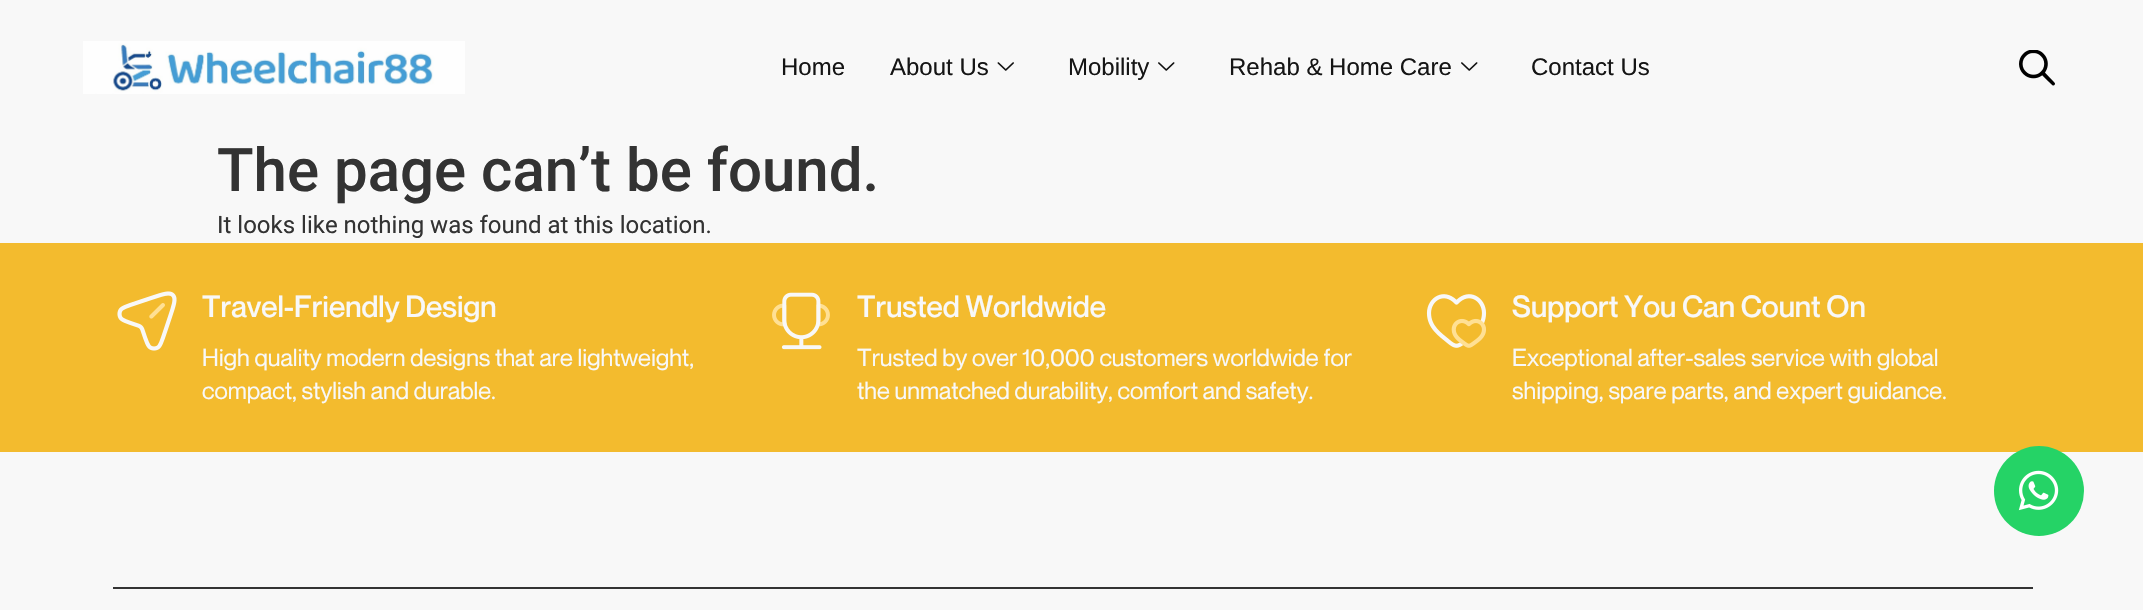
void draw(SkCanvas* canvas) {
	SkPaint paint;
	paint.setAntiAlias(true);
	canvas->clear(0xfff8f8f8);
	canvas->drawImageRect(SkImages::DeferredFromEncodedData(SkData::MakeFromFileName("img1.png")), SkRect::MakeXYWH(83, 41, 382, 53), SkSamplingOptions());
	SkFont f1(fontMgr->matchFamilyStyle("Liberation Sans", SkFontStyle::Normal()), 24);
	f1.setSubpixel(true);
	paint.setColor(0xff151515);
	canvas->drawString("Home", 781, 75, f1, paint);
	canvas->drawString("About Us", 890, 75, f1, paint);
	canvas->drawImageRect(SkImages::DeferredFromEncodedData(SkData::MakeFromFileName("img2.png")), SkRect::MakeXYWH(997, 62, 17, 9), SkSamplingOptions());
	canvas->drawString("Mobility", 1068, 75, f1, paint);
	canvas->drawImageRect(SkImages::DeferredFromEncodedData(SkData::MakeFromFileName("img3.png")), SkRect::MakeXYWH(1158, 62, 17, 9), SkSamplingOptions());
	canvas->drawString("Rehab & Home Care", 1229, 75, f1, paint);
	canvas->drawImageRect(SkImages::DeferredFromEncodedData(SkData::MakeFromFileName("img3.png")), SkRect::MakeXYWH(1461, 62, 17, 9), SkSamplingOptions());
	canvas->drawString("Contact Us", 1531, 75, f1, paint);
	canvas->drawImageRect(SkImages::DeferredFromEncodedData(SkData::MakeFromFileName("img4.png")), SkRect::MakeXYWH(2019, 50, 36, 36), SkSamplingOptions());
	SkFont f2(fontMgr->matchFamilyStyle("Roboto", SkFontStyle(500, SkFontStyle::kNormal_Width, SkFontStyle::kUpright_Slant)), 60);
	f2.setSubpixel(true);
	paint.setColor(0xff333333);
	canvas->drawString("The page can’t be found.", 217, 191, f2, paint);
	SkFont f3(fontMgr->matchFamilyStyle("Roboto", SkFontStyle::Normal()), 24);
	f3.setSubpixel(true);
	canvas->drawString("It looks like nothing was found at this location.", 217, 233, f3, paint);
	paint.setColor(0xfff3bb2e);
	canvas->drawRect(SkRect::MakeXYWH(0, 243, 2143, 209), paint);
	canvas->drawImageRect(SkImages::DeferredFromEncodedData(SkData::MakeFromFileName("img5.png")), SkRect::MakeXYWH(117, 291, 60, 60), SkSamplingOptions());
	SkFont f4(fontMgr->matchFamilyStyle("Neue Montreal", SkFontStyle(500, SkFontStyle::kNormal_Width, SkFontStyle::kUpright_Slant)), 30);
	f4.setSubpixel(true);
	paint.setColor(0xfff8f8f8);
	canvas->drawString("Travel-Friendly Design", 202, 317, f4, paint);
	SkFont f5(fontMgr->matchFamilyStyle("Neue Montreal", SkFontStyle::Normal()), 24);
	f5.setSubpixel(true);
	canvas->drawString("High quality modern designs that are lightweight,", 202, 366, f5, paint);
	canvas->drawString("compact, stylish and durable.", 202, 399, f5, paint);
	canvas->drawImageRect(SkImages::DeferredFromEncodedData(SkData::MakeFromFileName("img6.png")), SkRect::MakeXYWH(772, 292, 58, 58), SkSamplingOptions());
	canvas->drawString("Trusted Worldwide", 857, 317, f4, paint);
	canvas->drawString("Trusted by over 10,000 customers worldwide for", 857, 366, f5, paint);
	canvas->drawString("the unmatched durability, comfort and safety.", 857, 399, f5, paint);
	canvas->drawImageRect(SkImages::DeferredFromEncodedData(SkData::MakeFromFileName("img7.png")), SkRect::MakeXYWH(1426, 294, 61, 54), SkSamplingOptions());
	canvas->drawString("Support You Can Count On", 1512, 317, f4, paint);
	canvas->drawString("Exceptional after-sales service with global", 1512, 366, f5, paint);
	canvas->drawString("shipping, spare parts, and expert guidance.", 1512, 399, f5, paint);
	paint.setColor(0xff333333);
	canvas->drawRect(SkRect::MakeXYWH(113, 587, 1920, 2), paint);
	paint.setColor(0xff25d366);
	canvas->drawCircle(2039, 491, 45, paint);
	canvas->drawImageRect(SkImages::DeferredFromEncodedData(SkData::MakeFromFileName("img8.png")), SkRect::MakeXYWH(2018, 470, 41, 41), SkSamplingOptions());
}
